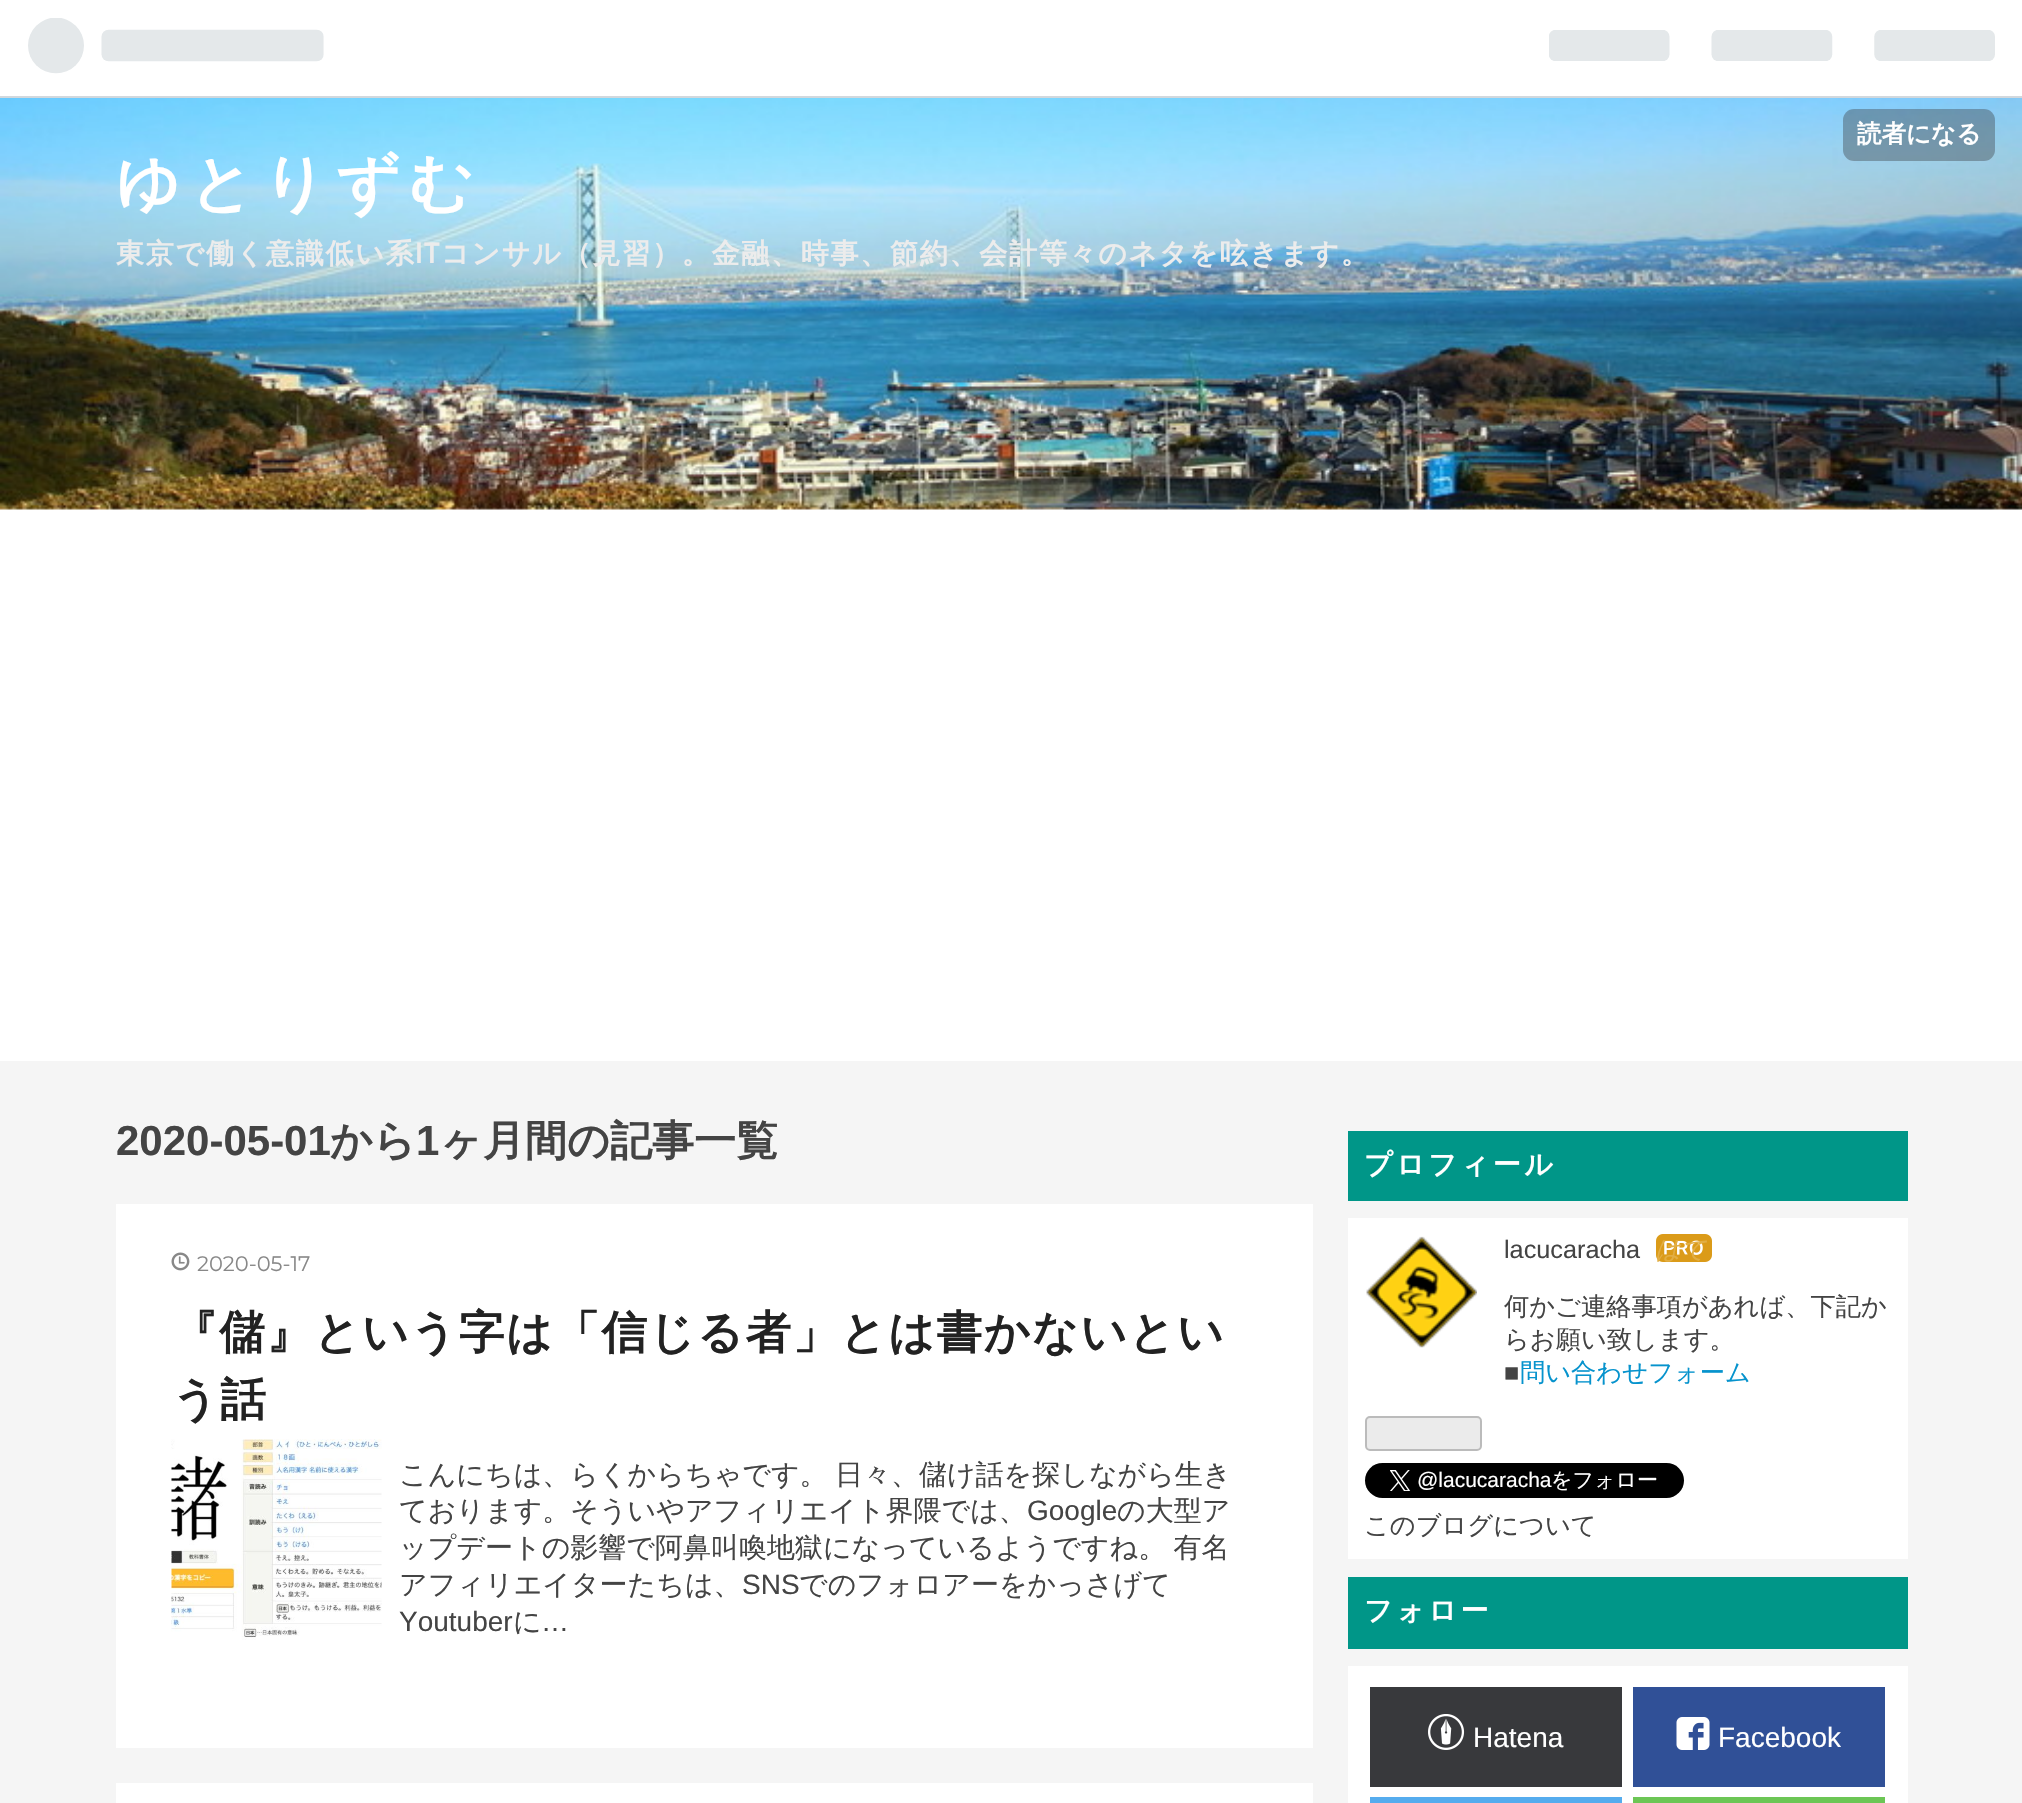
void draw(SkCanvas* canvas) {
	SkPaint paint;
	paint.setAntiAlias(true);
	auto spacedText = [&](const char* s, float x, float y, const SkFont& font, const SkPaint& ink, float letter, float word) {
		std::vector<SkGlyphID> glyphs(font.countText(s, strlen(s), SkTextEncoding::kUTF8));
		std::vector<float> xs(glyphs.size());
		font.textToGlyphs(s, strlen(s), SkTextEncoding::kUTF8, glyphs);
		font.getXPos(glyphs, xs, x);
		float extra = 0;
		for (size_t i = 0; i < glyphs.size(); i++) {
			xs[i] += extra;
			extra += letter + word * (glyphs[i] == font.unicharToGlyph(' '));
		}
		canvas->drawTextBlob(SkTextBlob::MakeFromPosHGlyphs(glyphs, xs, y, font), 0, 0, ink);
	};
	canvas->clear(0xffffffff);
	canvas->drawImageRect(SkImages::DeferredFromEncodedData(SkData::MakeFromFileName("img1.png")), SkRect::MakeXYWH(0, 98, 2022, 412), SkSamplingOptions());
	paint.setColor(0xffd2d8dd);
	canvas->drawRect(SkRect::MakeXYWH(0, 96, 2022, 2), paint);
	canvas->drawImageRect(SkImages::DeferredFromEncodedData(SkData::MakeFromFileName("img2.png")), SkRect::MakeXYWH(28, 18, 296, 56), SkSamplingOptions());
	canvas->drawImageRect(SkImages::DeferredFromEncodedData(SkData::MakeFromFileName("img3.png")), SkRect::MakeXYWH(1549, 30, 446, 31), SkSamplingOptions());
	paint.setColor(0x663d4245);
	canvas->drawRoundRect(SkRect::MakeXYWH(1843, 109, 152, 52), 11, 11, paint);
	SkFont f1(fontMgr->matchFamilyStyle("WenQuanYi Zen Hei", SkFontStyle::Bold()), 24.5);
	f1.setSubpixel(true);
	paint.setColor(0xffffffff);
	canvas->drawString("読者になる", 1857, 142, f1, paint);
	SkFont f2(fontMgr->matchFamilyStyle("WenQuanYi Zen Hei", SkFontStyle::Bold()), 63);
	f2.setSubpixel(true);
	spacedText("ゆとりずむ", 116, 205, f2, paint, 8.75, 0);
	SkFont f3(fontMgr->matchFamilyStyle("WenQuanYi Zen Hei", SkFontStyle::Bold()), 28);
	f3.setSubpixel(true);
	paint.setColor(0xffececec);
	spacedText("東京で働く意識低い系", 116, 263, f3, paint, 1.75, 0);
	SkFont f4(fontMgr->matchFamilyStyle("Cabin", SkFontStyle::Bold()), 28);
	f4.setSubpixel(true);
	spacedText("IT", 415, 263, f4, paint, 1.75, 0);
	spacedText("コンサル（見習）。金融、時事、節約、会計等々のネタを呟きます。", 441, 263, f3, paint, 1.75, 0);
	paint.setColor(0xfff5f5f5);
	canvas->drawRect(SkRect::MakeXYWH(0, 1061, 2022, 742), paint);
	SkFont f5(fontMgr->matchFamilyStyle("Liberation Sans", SkFontStyle::Bold()), 42);
	f5.setSubpixel(true);
	paint.setColor(0xff444444);
	canvas->drawString("2020-05-01", 116, 1155, f5, paint);
	SkFont f6(fontMgr->matchFamilyStyle("WenQuanYi Zen Hei", SkFontStyle::Bold()), 42);
	f6.setSubpixel(true);
	canvas->drawString("から", 330, 1155, f6, paint);
	canvas->drawString("1", 416, 1155, f5, paint);
	canvas->drawString("ヶ月間の記事一覧", 440, 1155, f6, paint);
	paint.setColor(0xffffffff);
	canvas->drawRect(SkRect::MakeXYWH(116, 1204, 1197, 544), paint);
	canvas->drawImageRect(SkImages::DeferredFromEncodedData(SkData::MakeFromFileName("img4.png")), SkRect::MakeXYWH(171, 1252, 19, 19), SkSamplingOptions());
	SkFont f7(fontMgr->matchFamilyStyle("Montserrat", SkFontStyle(100, SkFontStyle::kNormal_Width, SkFontStyle::kUpright_Slant)), 21);
	f7.setSubpixel(true);
	paint.setColor(0xff888888);
	canvas->drawString("2020-05-17", 197, 1271, f7, paint);
	SkFont f8(fontMgr->matchFamilyStyle("WenQuanYi Zen Hei", SkFontStyle::Bold()), 45.5);
	f8.setSubpixel(true);
	paint.setColor(0xff222222);
	spacedText("『儲』という字は「信じる者」とは書かないとい", 172, 1348, f8, paint, 1.75, 0);
	spacedText("う話", 172, 1415, f8, paint, 1.75, 0);
	canvas->drawImageRect(SkImages::DeferredFromEncodedData(SkData::MakeFromFileName("img5.png")), SkRect::MakeXYWH(171, 1439, 211, 201), SkSamplingOptions());
	SkFont f9(fontMgr->matchFamilyStyle("WenQuanYi Zen Hei", SkFontStyle(500, SkFontStyle::kNormal_Width, SkFontStyle::kUpright_Slant)), 28);
	f9.setSubpixel(true);
	paint.setColor(0xff444444);
	spacedText("こんにちは、らくからちゃです。 日々、儲け話を探しながら生き", 399, 1484, f9, paint, 0, -1);
	canvas->drawString("ております。そういやアフィリエイト界隈では、", 399, 1520, f9, paint);
	SkFont f10(fontMgr->matchFamilyStyle("Liberation Sans", SkFontStyle::Normal()), 28);
	f10.setSubpixel(true);
	canvas->drawString("Google", 1027, 1520, f10, paint);
	canvas->drawString("の大型ア", 1117, 1520, f9, paint);
	spacedText("ップデートの影響で阿鼻叫喚地獄になっているようですね。 有名", 399, 1557, f9, paint, 0, -1);
	canvas->drawString("アフィリエイターたちは、", 399, 1594, f9, paint);
	canvas->drawString("SNS", 742, 1594, f10, paint);
	canvas->drawString("でのフォロアーをかっさげて", 799, 1594, f9, paint);
	canvas->drawString("Youtuber", 399, 1631, f10, paint);
	canvas->drawString("に", 513, 1631, f9, paint);
	canvas->drawString("…", 541, 1631, f10, paint);
	paint.setColor(0xffffffff);
	canvas->drawRect(SkRect::MakeXYWH(116, 1783, 1197, 20), paint);
	paint.setColor(0xff009688);
	canvas->drawRect(SkRect::MakeXYWH(1348, 1131, 560, 70), paint);
	paint.setColor(0xffffffff);
	spacedText("プロフィール", 1364, 1174, f3, paint, 3.5, 0);
	canvas->drawRect(SkRect::MakeXYWH(1348, 1218, 560, 341), paint);
	canvas->drawImageRect(SkImages::DeferredFromEncodedData(SkData::MakeFromFileName("img6.png")), SkRect::MakeXYWH(1366, 1236, 111, 112), SkSamplingOptions());
	SkFont f11(fontMgr->matchFamilyStyle("Liberation Sans", SkFontStyle::Normal()), 25.25);
	f11.setSubpixel(true);
	paint.setColor(0xff444444);
	canvas->drawString("lacucaracha", 1504, 1258, f11, paint);
	canvas->drawImageRect(SkImages::DeferredFromEncodedData(SkData::MakeFromFileName("img7.png")), SkRect::MakeXYWH(1656, 1234, 56, 28), SkSamplingOptions());
	SkFont f12(fontMgr->matchFamilyStyle("WenQuanYi Zen Hei", SkFontStyle(500, SkFontStyle::kNormal_Width, SkFontStyle::kItalic_Slant)), 25.25);
	f12.setSubpixel(true);
	paint.setColor(0xffe2ae44);
	canvas->drawString("はて", 1655, 1258, f12, paint);
	SkFont f13(fontMgr->matchFamilyStyle("WenQuanYi Zen Hei", SkFontStyle(500, SkFontStyle::kNormal_Width, SkFontStyle::kUpright_Slant)), 25.25);
	f13.setSubpixel(true);
	paint.setColor(0xff444444);
	canvas->drawString("何かご連絡事項があれば、下記か", 1504, 1315, f13, paint);
	canvas->drawString("らお願い致します。", 1504, 1348, f13, paint);
	canvas->drawString("■", 1504, 1381, f11, paint);
	paint.setColor(0xff0693cd);
	canvas->drawString("問い合わせフォーム", 1520, 1381, f13, paint);
	paint.setColor(0xffebebeb);
	canvas->drawRoundRect(SkRect::MakeXYWH(1366, 1417, 115, 33), 4, 4, paint);
	paint.setStroke(true);
	paint.setStrokeWidth(2);
	paint.setColor(0xffbbbbbb);
	canvas->drawRoundRect(SkRect::MakeXYWH(1366, 1417, 115, 33), 4, 4, paint);
	paint.setStroke(false);
	paint.setColor(0xff000000);
	canvas->drawRoundRect(SkRect::MakeXYWH(1365, 1463, 319, 35), 17.5, 17.5, paint);
	canvas->drawImageRect(SkImages::DeferredFromEncodedData(SkData::MakeFromFileName("img8.png")), SkRect::MakeXYWH(1390, 1470, 21, 21), SkSamplingOptions());
	SkFont f14(fontMgr->matchFamilyStyle("Liberation Sans", SkFontStyle::Normal()), 21);
	f14.setSubpixel(true);
	paint.setColor(0xffffffff);
	canvas->drawString("@lacucaracha", 1417, 1487, f14, paint);
	SkFont f15(fontMgr->matchFamilyStyle("WenQuanYi Zen Hei", SkFontStyle(500, SkFontStyle::kNormal_Width, SkFontStyle::kUpright_Slant)), 21);
	f15.setSubpixel(true);
	canvas->drawString("をフォロー", 1551, 1487, f15, paint);
	paint.setColor(0xff444444);
	canvas->drawString("このブログについて", 1364, 1534, f13, paint);
	paint.setColor(0xff009688);
	canvas->drawRect(SkRect::MakeXYWH(1348, 1577, 560, 72), paint);
	paint.setColor(0xffffffff);
	spacedText("フォロー", 1364, 1620, f3, paint, 3.5, 0);
	canvas->drawRect(SkRect::MakeXYWH(1348, 1666, 560, 137), paint);
	paint.setColor(0xff38393c);
	canvas->drawRect(SkRect::MakeXYWH(1370, 1687, 252, 100), paint);
	canvas->drawImageRect(SkImages::DeferredFromEncodedData(SkData::MakeFromFileName("img9.png")), SkRect::MakeXYWH(1428, 1714, 37, 36), SkSamplingOptions());
	paint.setColor(0xffffffff);
	canvas->drawString("Hatena", 1473, 1747, f10, paint);
	paint.setColor(0xff305097);
	canvas->drawRect(SkRect::MakeXYWH(1633, 1687, 252, 100), paint);
	canvas->drawImageRect(SkImages::DeferredFromEncodedData(SkData::MakeFromFileName("img10.png")), SkRect::MakeXYWH(1676, 1717, 34, 33), SkSamplingOptions());
	paint.setColor(0xffffffff);
	canvas->drawString("Facebook", 1718, 1747, f10, paint);
	paint.setColor(0xff55acee);
	canvas->drawRect(SkRect::MakeXYWH(1370, 1797, 252, 6), paint);
	paint.setColor(0xff6cc655);
	canvas->drawRect(SkRect::MakeXYWH(1633, 1797, 252, 6), paint);
}
